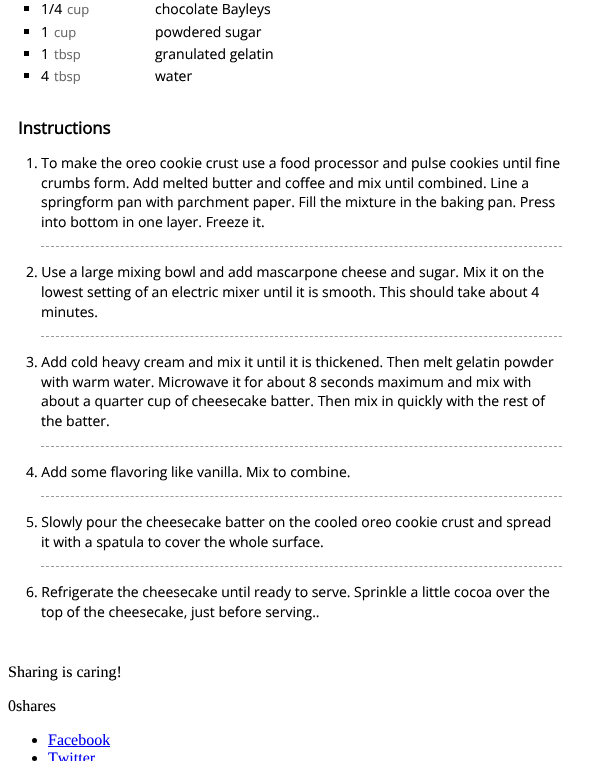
void draw(SkCanvas* canvas) {
	SkPaint paint;
	paint.setAntiAlias(true);
	auto svgPath = [&](const char* data, bool evenOdd = false) {
		SkPath result = *SkParsePath::FromSVGString(data);
		if (evenOdd) result.setFillType(SkPathFillType::kEvenOdd);
		return result;
	};
	canvas->clear(0xffffffff);
	paint.setColor(0xff000000);
	canvas->drawRect(SkRect::MakeXYWH(24, 6, 5, 5), paint);
	SkFont f1(fontMgr->matchFamilyStyle("Open Sans", SkFontStyle::Normal()), 14);
	f1.setSubpixel(true);
	canvas->drawString("1/4", 41, 14, f1, paint);
	SkFont f2(fontMgr->matchFamilyStyle("Open Sans", SkFontStyle::Normal()), 13);
	f2.setSubpixel(true);
	paint.setColor(0xff666666);
	canvas->drawString("cup", 67, 14, f2, paint);
	paint.setColor(0xff000000);
	canvas->drawString("chocolate Bayleys", 155, 14, f1, paint);
	canvas->drawRect(SkRect::MakeXYWH(24, 29, 5, 5), paint);
	canvas->drawString("1", 41, 37, f1, paint);
	paint.setColor(0xff666666);
	canvas->drawString("cup", 54, 37, f2, paint);
	paint.setColor(0xff000000);
	canvas->drawString("powdered sugar", 155, 37, f1, paint);
	canvas->drawRect(SkRect::MakeXYWH(24, 51, 5, 5), paint);
	canvas->drawString("1", 41, 59, f1, paint);
	paint.setColor(0xff666666);
	canvas->drawString("tbsp", 54, 59, f2, paint);
	paint.setColor(0xff000000);
	canvas->drawString("granulated gelatin", 155, 59, f1, paint);
	canvas->drawRect(SkRect::MakeXYWH(24, 73, 5, 5), paint);
	canvas->drawString("4", 41, 81, f1, paint);
	paint.setColor(0xff666666);
	canvas->drawString("tbsp", 54, 81, f2, paint);
	paint.setColor(0xff000000);
	canvas->drawString("water", 155, 81, f1, paint);
	SkFont f3(fontMgr->matchFamilyStyle("Open Sans", SkFontStyle::Bold()), 16.75);
	f3.setSubpixel(true);
	canvas->drawString("Instructions", 18, 134, f3, paint);
	paint.setStroke(true);
	paint.setStrokeWidth(1);
	paint.setColor(0xff999999);
	paint.setPathEffect(SkDashPathEffect::Make({{3, 1.98f}}, 0));
	canvas->drawPath(svgPath("M41 246.5H562"), paint);
	paint.setPathEffect(nullptr);
	paint.setStroke(false);
	paint.setColor(0xff000000);
	canvas->drawString("1. To make the oreo cookie crust use a food processor and pulse cookies until fine", 26, 168, f1, paint);
	canvas->drawString("crumbs form. Add melted butter and coffee and mix until combined. Line a", 41, 188, f1, paint);
	canvas->drawString("springform pan with parchment paper. Fill the mixture in the baking pan. Press", 41, 207, f1, paint);
	canvas->drawString("into bottom in one layer. Freeze it.", 41, 227, f1, paint);
	paint.setStroke(true);
	paint.setColor(0xff999999);
	paint.setPathEffect(SkDashPathEffect::Make({{3, 1.98f}}, 0));
	canvas->drawPath(svgPath("M41 336.5H562"), paint);
	paint.setPathEffect(nullptr);
	paint.setStroke(false);
	paint.setColor(0xff000000);
	canvas->drawString("2. Use a large mixing bowl and add mascarpone cheese and sugar. Mix it on the", 26, 277, f1, paint);
	canvas->drawString("lowest setting of an electric mixer until it is smooth. This should take about 4", 41, 297, f1, paint);
	canvas->drawString("minutes.", 41, 317, f1, paint);
	paint.setStroke(true);
	paint.setColor(0xff999999);
	paint.setPathEffect(SkDashPathEffect::Make({{3, 1.98f}}, 0));
	canvas->drawPath(svgPath("M41 446.5H562"), paint);
	paint.setPathEffect(nullptr);
	paint.setStroke(false);
	paint.setColor(0xff000000);
	canvas->drawString("3. Add cold heavy cream and mix it until it is thickened. Then melt gelatin powder", 26, 367, f1, paint);
	canvas->drawString("with warm water. Microwave it for about 8 seconds maximum and mix with", 41, 387, f1, paint);
	canvas->drawString("about a quarter cup of cheesecake batter. Then mix in quickly with the rest of", 41, 406, f1, paint);
	canvas->drawString("the batter.", 41, 426, f1, paint);
	paint.setStroke(true);
	paint.setColor(0xff999999);
	paint.setPathEffect(SkDashPathEffect::Make({{3, 1.98f}}, 0));
	canvas->drawPath(svgPath("M41 496.5H562"), paint);
	paint.setPathEffect(nullptr);
	paint.setStroke(false);
	paint.setColor(0xff000000);
	canvas->drawString("4. Add some flavoring like vanilla. Mix to combine.", 26, 477, f1, paint);
	paint.setStroke(true);
	paint.setColor(0xff999999);
	paint.setPathEffect(SkDashPathEffect::Make({{3, 1.98f}}, 0));
	canvas->drawPath(svgPath("M41 566.5H562"), paint);
	paint.setPathEffect(nullptr);
	paint.setStroke(false);
	paint.setColor(0xff000000);
	canvas->drawString("5. Slowly pour the cheesecake batter on the cooled oreo cookie crust and spread", 26, 527, f1, paint);
	canvas->drawString("it with a spatula to cover the whole surface.", 41, 547, f1, paint);
	canvas->drawString("6. Refrigerate the cheesecake until ready to serve. Sprinkle a little cocoa over the", 26, 597, f1, paint);
	canvas->drawString("top of the cheesecake, just before serving..", 41, 617, f1, paint);
	SkFont f4(fontMgr->matchFamilyStyle("Liberation Serif", SkFontStyle::Normal()), 16);
	f4.setSubpixel(true);
	canvas->drawString("Sharing is caring!", 8, 677, f4, paint);
	canvas->drawString("0shares", 8, 711, f4, paint);
	canvas->drawCircle(34.5, 740.5, 2.5, paint);
	paint.setColor(0xff0000ee);
	canvas->drawString("Facebook", 48, 745, f4, paint);
	canvas->drawRect(SkRect::MakeXYWH(48, 746, 62, 1), paint);
	paint.setColor(0xff000000);
	canvas->drawCircle(34.5, 758.5, 2.5, paint);
	paint.setColor(0xff0000ee);
	canvas->drawString("Twitter", 48, 763, f4, paint);
}
